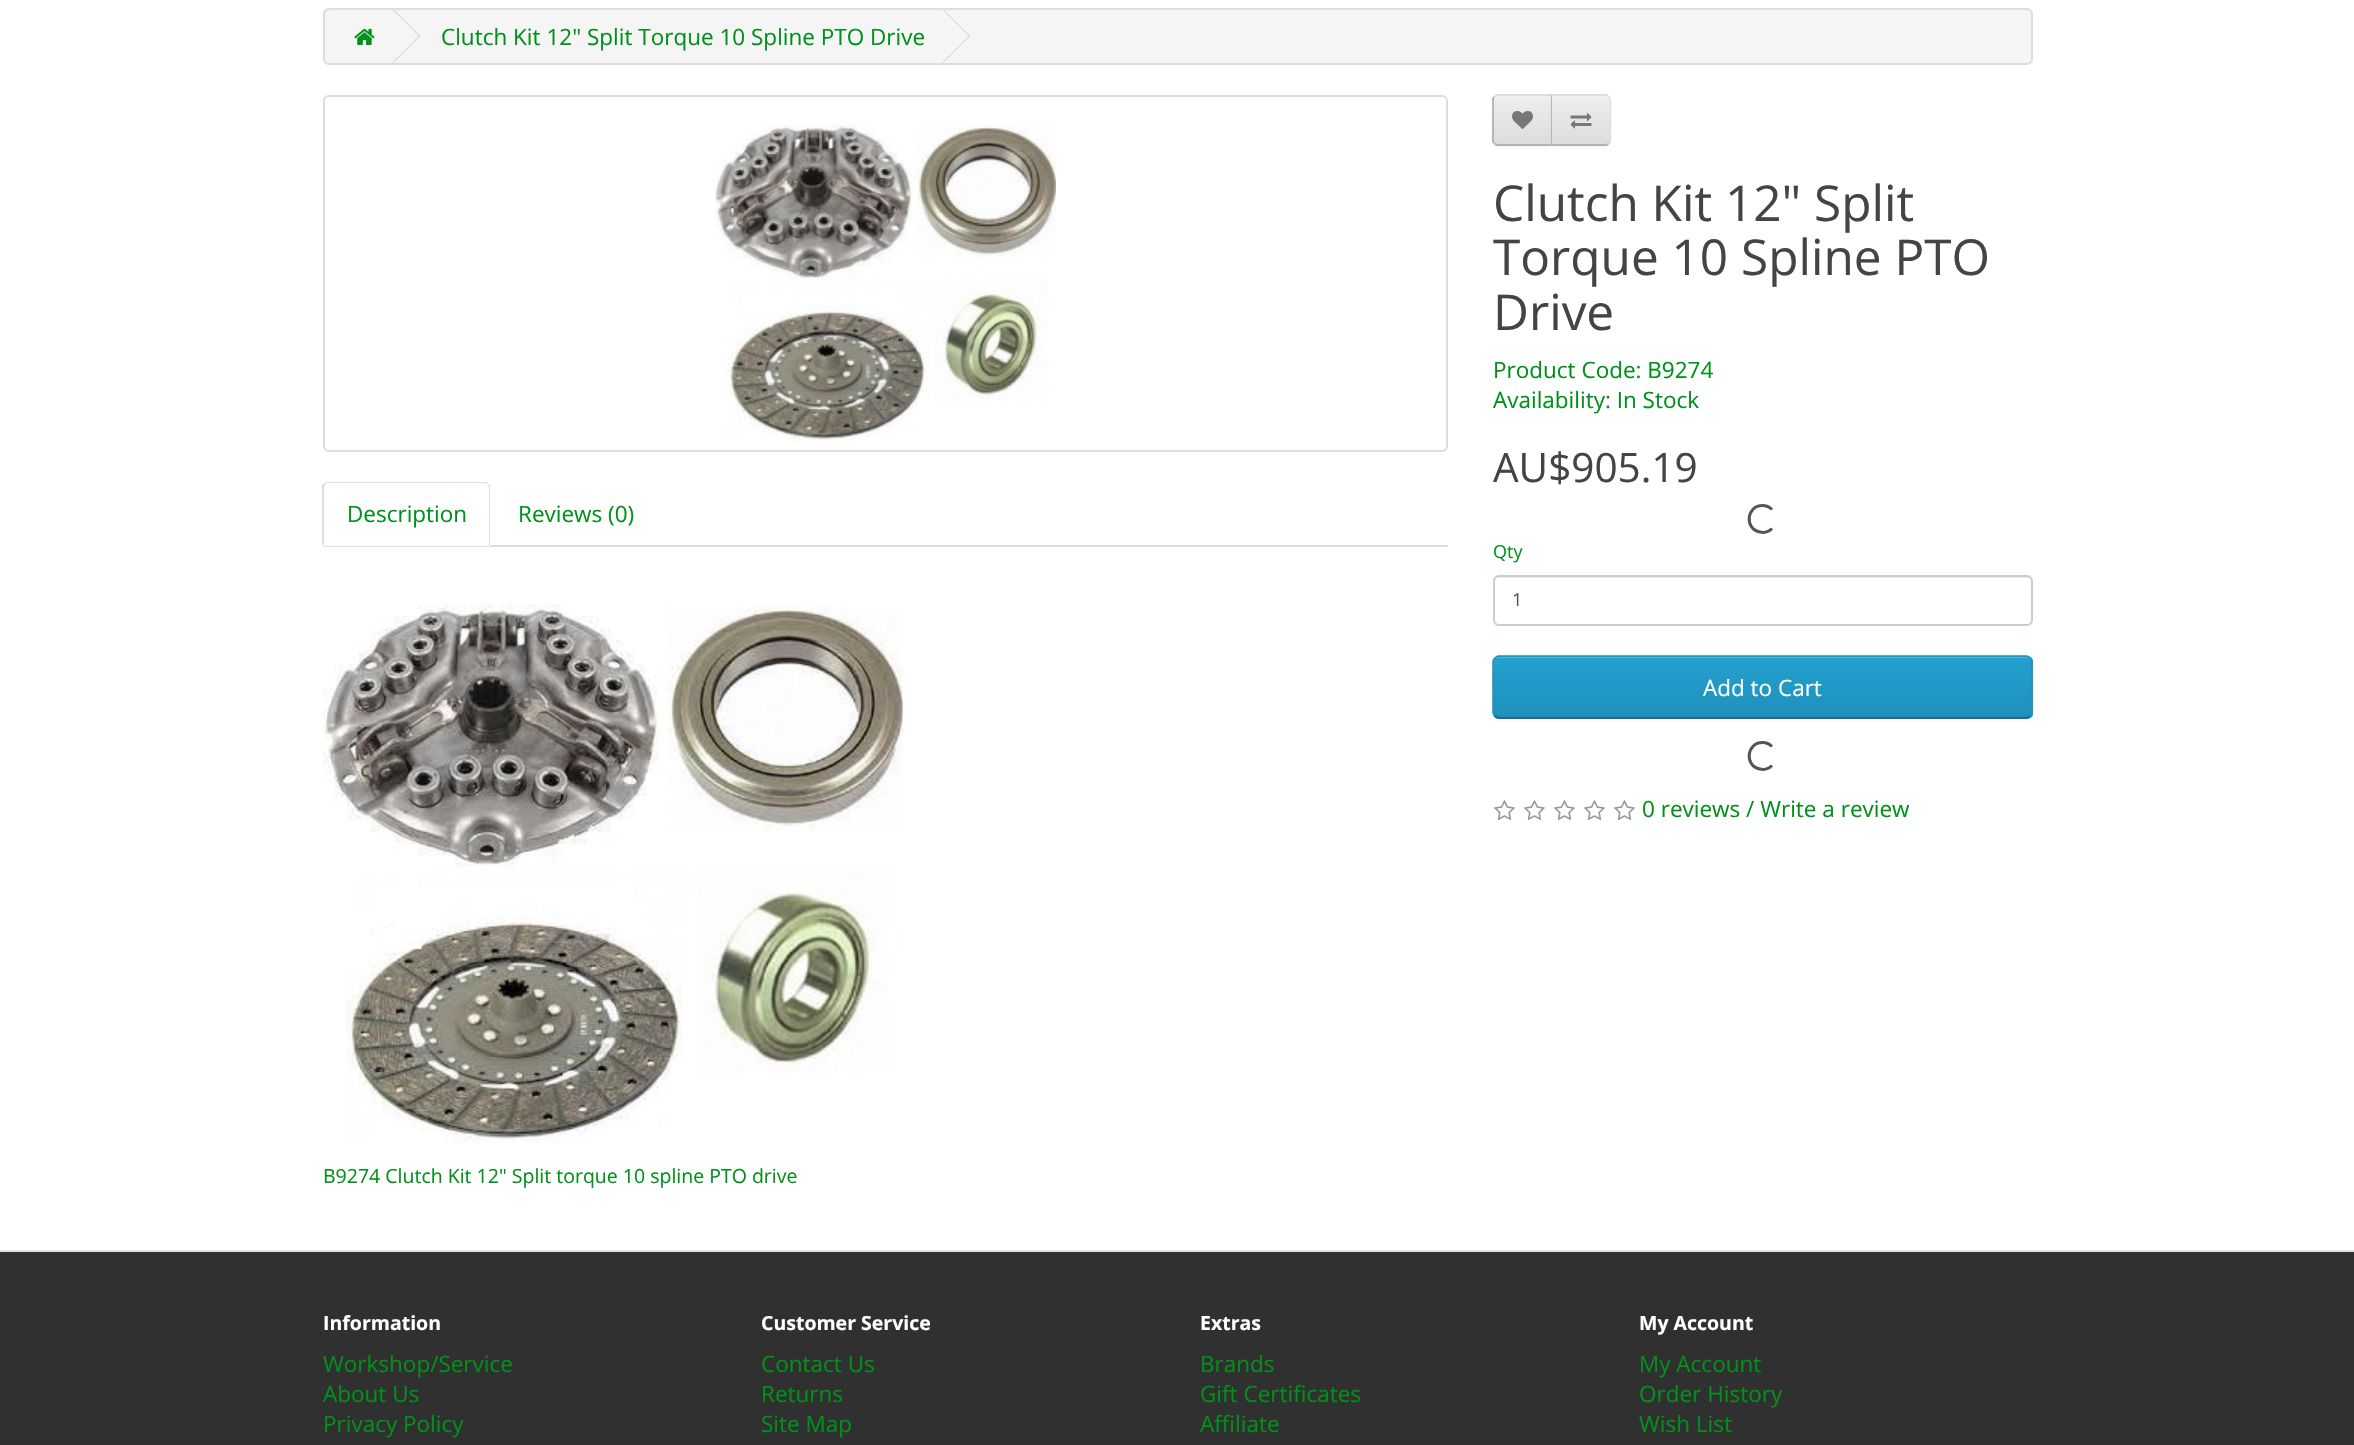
void draw(SkCanvas* canvas) {
	SkPaint paint;
	paint.setAntiAlias(true);
	auto svgPath = [&](const char* data, bool evenOdd = false) {
		SkPath result = *SkParsePath::FromSVGString(data);
		if (evenOdd) result.setFillType(SkPathFillType::kEvenOdd);
		return result;
	};
	canvas->clear(0xffffffff);
	paint.setColor(0xfff5f5f5);
	canvas->drawRoundRect(SkRect::MakeXYWH(324, 9, 1708, 55), 5, 5, paint);
	paint.setStroke(true);
	paint.setStrokeWidth(2);
	paint.setColor(0xffdddddd);
	canvas->drawRoundRect(SkRect::MakeXYWH(324, 9, 1708, 55), 5, 5, paint);
	canvas->drawImageRect(SkImages::DeferredFromEncodedData(SkData::MakeFromFileName("img1.png")), SkRect::MakeXYWH(354, 28, 21, 17), SkSamplingOptions());
	paint.setStroke(false);
	canvas->drawPath(svgPath("M392 9.5L393 8.5L420.5 36L419.5 37Z"), paint);
	canvas->drawPath(svgPath("M392 62.5L419.5 35L420.5 36L393 63.5Z"), paint);
	SkFont f1(fontMgr->matchFamilyStyle("Open Sans", SkFontStyle::Normal()), 22.5);
	f1.setSubpixel(true);
	paint.setColor(0xff00911a);
	canvas->drawString("Clutch Kit 12\" Split Torque 10 Spline PTO Drive", 441, 45, f1, paint);
	paint.setColor(0xffdddddd);
	canvas->drawPath(svgPath("M942 9.5L943 8.5L970.5 36L969.5 37Z"), paint);
	canvas->drawPath(svgPath("M942 62.5L969.5 35L970.5 36L943 63.5Z"), paint);
	paint.setStroke(true);
	canvas->drawRoundRect(SkRect::MakeXYWH(324, 96, 1123, 355), 5, 5, paint);
	canvas->drawImageRect(SkImages::DeferredFromEncodedData(SkData::MakeFromFileName("img2.png")), SkRect::MakeXYWH(714, 124, 342, 318), SkSamplingOptions());
	paint.setStroke(false);
	canvas->drawRect(SkRect::MakeXYWH(323, 545, 1125, 2), paint);
	paint.setColor(0xffffffff);
	canvas->drawPath(svgPath("M329 482H485C488.5 482 491 484.5 491 488V546H323V488C323 484.5 325.5 482 329 482Z"), paint);
	paint.setColor(0xffdddddd);
	canvas->drawPath(svgPath("M328 482L324 483L325 484L328 483H485L488 484C488 482 486 482 484 482Z"), paint);
	canvas->drawPath(svgPath("M490 546V488C490 486 490 484 488 484C488 485 489 486 489 488V544H488Z"), paint);
	canvas->drawPath(svgPath("M322 546L324 544V488C324 486 325 485 325 484L324 483L322 485Z"), paint);
	paint.setColor(0xff00911a);
	canvas->drawString("Description", 347, 522, f1, paint);
	canvas->drawString("Reviews (0)", 518, 522, f1, paint);
	canvas->drawImageRect(SkImages::DeferredFromEncodedData(SkData::MakeFromFileName("img3.png")), SkRect::MakeXYWH(322, 604, 581, 540), SkSamplingOptions());
	SkFont f2(fontMgr->matchFamilyStyle("Open Sans", SkFontStyle::Normal()), 19.5);
	f2.setSubpixel(true);
	canvas->drawString("B9274 Clutch Kit 12\" Split torque 10 spline PTO drive", 323, 1183, f2, paint);
	paint.setColor(0x0d000000);
	paint.setMaskFilter(SkMaskFilter::MakeBlur(kNormal_SkBlurStyle, 1.5));
	canvas->drawRoundRect(SkRect::MakeXYWH(1493, 96, 60, 51), 6, 6, paint);
	paint.setMaskFilter(nullptr);
	canvas->save();
	canvas->clipPath(svgPath("M1499 95H1553V146H1499C1495.5 146 1493 143.5 1493 140V101C1493 97.5 1495.5 95 1499 95Z"), true);
	{
		const SkColor colors[] = {0xffeeeeee, 0xffdddddd};
		const float stops[] = {0, 1};
		const SkPoint ends[] = {{1523, 96}, {1523, 144}};
		paint.setShader(SkGradientShader::MakeLinear(ends, colors, stops, 2, SkTileMode::kClamp));
		paint.setAlpha(255);
	}
	canvas->drawRect(SkRect::MakeXYWH(1493, 96, 58, 48), paint);
	canvas->restore();
	paint.setShader(nullptr);
	paint.setColor(0xfff1f1f1);
	canvas->drawPath(svgPath("M1498 98H1551V96H1499C1496 96 1494 98 1494 101V102C1494 100 1496 98 1498 98Z"), paint);
	paint.setColor(0xffdddddd);
	canvas->drawPath(svgPath("M1498 96L1495 97L1494 96L1496 94H1552L1551 96Z"), paint);
	paint.setColor(0xffb3b3b3);
	canvas->drawPath(svgPath("M1496 146L1494 144L1495 143L1498 144H1551L1552 145V146Z"), paint);
	paint.setColor(0xffb7b7b7);
	canvas->drawPath(svgPath("M1492 98L1494 96L1495 97C1494 98 1494 99 1494 100V140C1494 141 1494 142 1495 143L1494 144L1492 142Z"), paint);
	canvas->drawImageRect(SkImages::DeferredFromEncodedData(SkData::MakeFromFileName("img4.png")), SkRect::MakeXYWH(1512, 111, 21, 18), SkSamplingOptions());
	paint.setColor(0x0d000000);
	paint.setMaskFilter(SkMaskFilter::MakeBlur(kNormal_SkBlurStyle, 1.5));
	canvas->drawRoundRect(SkRect::MakeXYWH(1551, 96, 60, 51), 6, 6, paint);
	paint.setMaskFilter(nullptr);
	paint.setColor(0xffe7e7e7);
	canvas->drawPath(svgPath("M1551 95H1605C1608.5 95 1611 97.5 1611 101V140C1611 143.5 1608.5 146 1605 146H1551Z"), paint);
	canvas->save();
	canvas->clipPath(svgPath("M1551 95H1605C1608.5 95 1611 97.5 1611 101V140C1611 143.5 1608.5 146 1605 146H1551Z"), true);
	{
		const SkColor colors[] = {0xffeeeeee, 0xffdddddd};
		const float stops[] = {0, 1};
		const SkPoint ends[] = {{1581, 96}, {1581, 144}};
		paint.setShader(SkGradientShader::MakeLinear(ends, colors, stops, 2, SkTileMode::kClamp));
		paint.setAlpha(255);
	}
	canvas->drawRect(SkRect::MakeXYWH(1552, 96, 59, 48), paint);
	canvas->restore();
	paint.setShader(nullptr);
	paint.setColor(0xfff1f1f1);
	canvas->drawPath(svgPath("M1553 96V98H1605C1607 98 1610 100 1610 102C1610 99 1608 96 1605 96Z"), paint);
	paint.setColor(0xffdddddd);
	canvas->drawPath(svgPath("M1551 94H1607L1609 96L1608 97C1607 96 1606 96 1605 96H1552Z"), paint);
	canvas->drawPath(svgPath("M1611 140V100C1611 99 1610 97 1609 96L1608 97C1609 98 1610 99 1610 100V140C1610 141 1609 142 1608 143L1609 144C1610 143 1611 141 1611 140Z"), paint);
	paint.setColor(0xffb3b3b3);
	canvas->drawPath(svgPath("M1607 146H1551L1552 144H1605C1606 144 1607 144 1608 143L1609 144Z"), paint);
	paint.setColor(0xffb7b7b7);
	canvas->drawPath(svgPath("M1552 96L1551 94V146L1552 144Z"), paint);
	canvas->drawImageRect(SkImages::DeferredFromEncodedData(SkData::MakeFromFileName("img5.png")), SkRect::MakeXYWH(1570, 112, 22, 17), SkSamplingOptions());
	SkFont f3(fontMgr->matchFamilyStyle("Open Sans", SkFontStyle::Normal()), 49.5);
	f3.setSubpixel(true);
	paint.setColor(0xff444444);
	canvas->drawString("Clutch Kit 12\" Split", 1493, 221, f3, paint);
	canvas->drawString("Torque 10 Spline PTO", 1493, 275, f3, paint);
	canvas->drawString("Drive", 1493, 330, f3, paint);
	paint.setColor(0xff00911a);
	canvas->drawString("Product Code: B9274", 1493, 378, f1, paint);
	canvas->drawString("Availability: In Stock", 1493, 408, f1, paint);
	SkFont f4(fontMgr->matchFamilyStyle("Open Sans", SkFontStyle::Normal()), 40.5);
	f4.setSubpixel(true);
	paint.setColor(0xff444444);
	canvas->drawString("AU$905.19", 1493, 482, f4, paint);
	paint.setStroke(true);
	paint.setStrokeWidth(3);
	paint.setColor(0xff545454);
	canvas->drawPath(svgPath("M1772 528.5C1769 531.5 1764 533 1760 532C1744 529 1746.5 505.5 1762.5 505.5C1766 505.5 1769.5 507 1772 509.5"), paint);
	SkFont f5(fontMgr->matchFamilyStyle("Open Sans", SkFontStyle::Normal()), 18);
	f5.setSubpixel(true);
	paint.setStroke(false);
	paint.setColor(0xff00911a);
	canvas->drawString("Qty", 1493, 558, f5, paint);
	paint.setColor(0xffececec);
	canvas->drawPath(svgPath("M1498 578H2026C2029 578 2031 580 2031 582C2031 579 2029 576 2026 576H1499C1496 576 1494 579 1494 582C1494 580 1496 578 1498 578Z"), paint);
	paint.setStroke(true);
	paint.setStrokeWidth(2);
	paint.setColor(0xffcccccc);
	canvas->drawRoundRect(SkRect::MakeXYWH(1494, 576, 538, 49), 5, 5, paint);
	paint.setStroke(false);
	paint.setColor(0xff555555);
	canvas->drawString("1", 1512, 606, f5, paint);
	paint.setColor(0x0d000000);
	paint.setMaskFilter(SkMaskFilter::MakeBlur(kNormal_SkBlurStyle, 1.5));
	canvas->drawRoundRect(SkRect::MakeXYWH(1493, 657, 540, 63), 6, 6, paint);
	paint.setMaskFilter(nullptr);
	paint.setColor(0xff229ac8);
	canvas->drawRoundRect(SkRect::MakeXYWH(1493, 656, 540, 63), 6, 6, paint);
	canvas->save();
	canvas->clipPath(svgPath("M1499 656H2027C2030.5 656 2033 658.5 2033 662V713C2033 716.5 2030.5 719 2027 719H1499C1495.5 719 1493 716.5 1493 713V662C1493 658.5 1495.5 656 1499 656Z"), true);
	{
		const SkColor colors[] = {0xff23a1d1, 0xff1f90bb};
		const float stops[] = {0, 1};
		const SkPoint ends[] = {{1763, 657}, {1763, 717}};
		paint.setShader(SkGradientShader::MakeLinear(ends, colors, stops, 2, SkTileMode::kClamp));
		paint.setAlpha(255);
	}
	canvas->drawRect(SkRect::MakeXYWH(1493, 657, 540, 60), paint);
	canvas->restore();
	paint.setShader(nullptr);
	paint.setColor(0xff4fb4da);
	canvas->drawPath(svgPath("M1498 658H2026C2029 658 2031 661 2031 663C2031 660 2029 657 2026 657H1499C1496 657 1494 660 1494 663C1494 661 1496 658 1498 658Z"), paint);
	paint.setStroke(true);
	paint.setStrokeWidth(1.5);
	paint.setColor(0xff145e7a);
	canvas->drawPath(svgPath("M2030 716C2029 717 2028 718 2026.5 718H1498.5C1497 718 1496 717 1495 716"), paint);
	paint.setColor(0xff1f90bb);
	canvas->drawPath(svgPath("M1495 716C1494 715 1493 714 1493 712.5V661.5C1493 660 1494 659 1495 658C1496 657 1497 656 1498.5 656H2026.5C2028 656 2029 657 2030 658C2031 659 2032 660 2032 661.5V712.5C2032 714 2031 715 2030 716"), paint);
	paint.setStroke(false);
	paint.setColor(0xffffffff);
	canvas->drawString("Add to Cart", 1703, 696, f1, paint);
	paint.setStroke(true);
	paint.setStrokeWidth(3);
	paint.setColor(0xff545454);
	canvas->drawPath(svgPath("M1772 765.5C1769 768.5 1764 770 1760 769C1744 766 1746.5 742.5 1762.5 742.5C1766 742.5 1769.5 744 1772 746.5"), paint);
	canvas->drawImageRect(SkImages::DeferredFromEncodedData(SkData::MakeFromFileName("img6.png")), SkRect::MakeXYWH(1494, 800, 21, 20), SkSamplingOptions());
	canvas->drawImageRect(SkImages::DeferredFromEncodedData(SkData::MakeFromFileName("img6.png")), SkRect::MakeXYWH(1524, 800, 21, 20), SkSamplingOptions());
	canvas->drawImageRect(SkImages::DeferredFromEncodedData(SkData::MakeFromFileName("img6.png")), SkRect::MakeXYWH(1554, 800, 21, 20), SkSamplingOptions());
	canvas->drawImageRect(SkImages::DeferredFromEncodedData(SkData::MakeFromFileName("img6.png")), SkRect::MakeXYWH(1584, 800, 21, 20), SkSamplingOptions());
	canvas->drawImageRect(SkImages::DeferredFromEncodedData(SkData::MakeFromFileName("img6.png")), SkRect::MakeXYWH(1614, 800, 21, 20), SkSamplingOptions());
	paint.setStroke(false);
	paint.setColor(0xff00911a);
	canvas->drawString("0 reviews / Write a review", 1642, 817, f1, paint);
	paint.setColor(0xff303030);
	canvas->drawRect(SkRect::MakeXYWH(0, 1252, 2354, 193), paint);
	paint.setColor(0xffdddddd);
	canvas->drawRect(SkRect::MakeXYWH(0, 1250, 2354, 2), paint);
	SkFont f6(fontMgr->matchFamilyStyle("Open Sans", SkFontStyle::Bold()), 19.5);
	f6.setSubpixel(true);
	paint.setColor(0xffffffff);
	canvas->drawString("Information", 323, 1330, f6, paint);
	paint.setColor(0xff00911a);
	canvas->drawString("Workshop/Service", 323, 1372, f1, paint);
	canvas->drawString("About Us", 323, 1402, f1, paint);
	canvas->drawString("Privacy Policy", 323, 1432, f1, paint);
	paint.setColor(0xffffffff);
	canvas->drawString("Customer Service", 761, 1330, f6, paint);
	paint.setColor(0xff00911a);
	canvas->drawString("Contact Us", 761, 1372, f1, paint);
	canvas->drawString("Returns", 761, 1402, f1, paint);
	canvas->drawString("Site Map", 761, 1432, f1, paint);
	paint.setColor(0xffffffff);
	canvas->drawString("Extras", 1200, 1330, f6, paint);
	paint.setColor(0xff00911a);
	canvas->drawString("Brands", 1200, 1372, f1, paint);
	canvas->drawString("Gift Certificates", 1200, 1402, f1, paint);
	canvas->drawString("Affiliate", 1200, 1432, f1, paint);
	paint.setColor(0xffffffff);
	canvas->drawString("My Account", 1639, 1330, f6, paint);
	paint.setColor(0xff00911a);
	canvas->drawString("My Account", 1639, 1372, f1, paint);
	canvas->drawString("Order History", 1639, 1402, f1, paint);
	canvas->drawString("Wish List", 1639, 1432, f1, paint);
}
